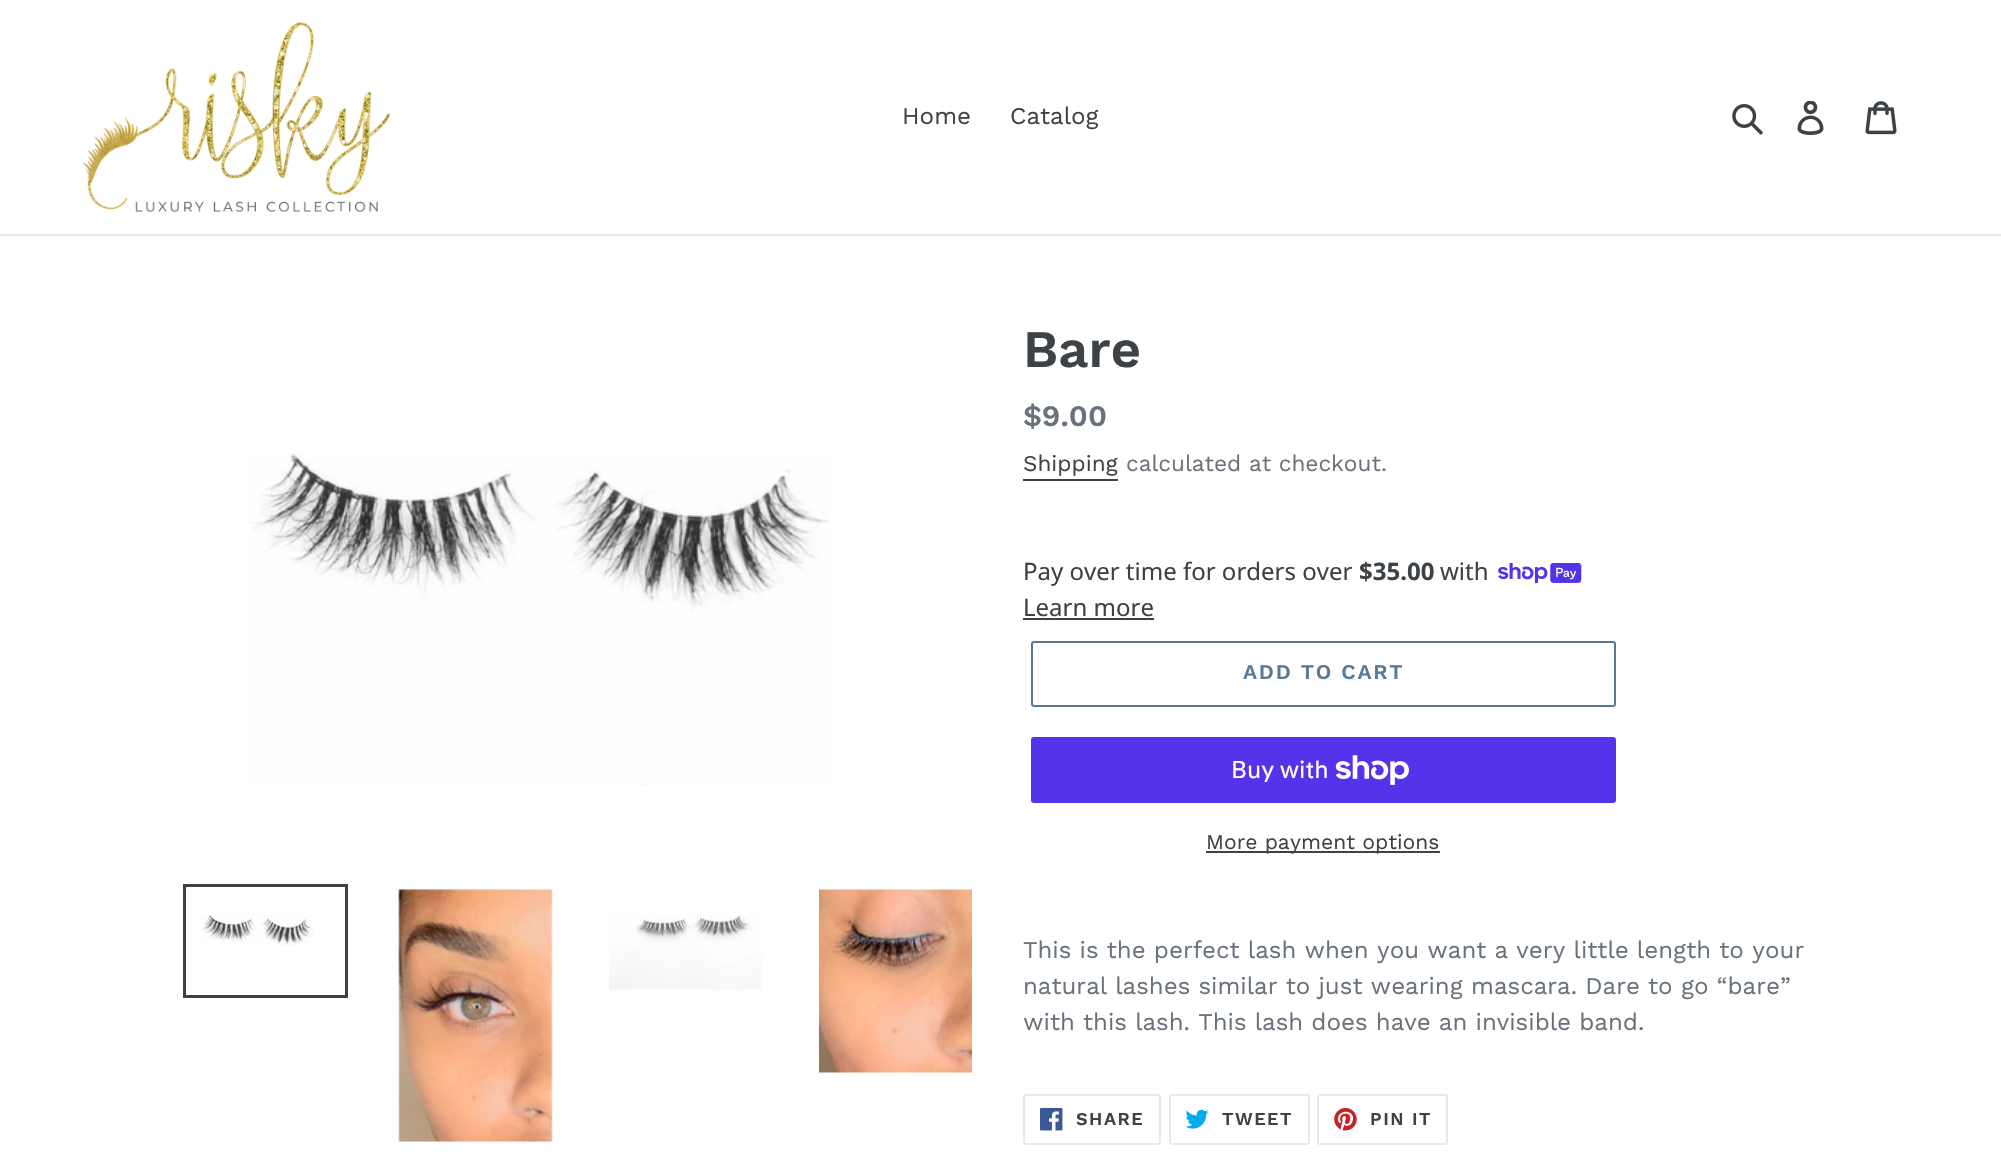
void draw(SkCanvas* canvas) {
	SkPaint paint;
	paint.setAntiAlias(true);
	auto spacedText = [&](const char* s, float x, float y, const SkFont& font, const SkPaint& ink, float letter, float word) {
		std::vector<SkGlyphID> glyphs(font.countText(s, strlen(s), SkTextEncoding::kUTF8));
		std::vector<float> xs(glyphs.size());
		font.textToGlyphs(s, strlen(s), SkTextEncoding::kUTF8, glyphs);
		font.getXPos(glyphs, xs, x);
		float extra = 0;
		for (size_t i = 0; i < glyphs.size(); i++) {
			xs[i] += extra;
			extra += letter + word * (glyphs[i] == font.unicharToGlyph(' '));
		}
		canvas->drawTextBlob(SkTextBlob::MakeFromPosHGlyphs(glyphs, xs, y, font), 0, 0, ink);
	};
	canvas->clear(0xffffffff);
	paint.setColor(0xffe8e9eb);
	canvas->drawRect(SkRect::MakeXYWH(0, 234, 2001, 2), paint);
	canvas->drawImageRect(SkImages::DeferredFromEncodedData(SkData::MakeFromFileName("img1.png")), SkRect::MakeXYWH(82, 22, 308, 190), SkSamplingOptions());
	SkFont f1(fontMgr->matchFamilyStyle("Work Sans", SkFontStyle::Normal()), 24);
	f1.setSubpixel(true);
	paint.setColor(0xff3d4246);
	canvas->drawString("Home", 902, 124, f1, paint);
	canvas->drawString("Catalog", 1010, 124, f1, paint);
	canvas->drawImageRect(SkImages::DeferredFromEncodedData(SkData::MakeFromFileName("img2.png")), SkRect::MakeXYWH(1732, 104, 31, 31), SkSamplingOptions());
	canvas->drawImageRect(SkImages::DeferredFromEncodedData(SkData::MakeFromFileName("img3.png")), SkRect::MakeXYWH(1797, 101, 27, 34), SkSamplingOptions());
	canvas->drawImageRect(SkImages::DeferredFromEncodedData(SkData::MakeFromFileName("img4.png")), SkRect::MakeXYWH(1865, 101, 32, 34), SkSamplingOptions());
	canvas->drawImageRect(SkImages::DeferredFromEncodedData(SkData::MakeFromFileName("img5.png")), SkRect::MakeXYWH(248, 453, 582, 333), SkSamplingOptions());
	paint.setStroke(true);
	paint.setStrokeWidth(3);
	canvas->drawRect(SkRect::MakeXYWH(184.5, 885.5, 162, 111), paint);
	canvas->drawImageRect(SkImages::DeferredFromEncodedData(SkData::MakeFromFileName("img6.png")), SkRect::MakeXYWH(201, 915, 113, 31), SkSamplingOptions());
	canvas->drawImageRect(SkImages::DeferredFromEncodedData(SkData::MakeFromFileName("img7.png")), SkRect::MakeXYWH(398, 889, 155, 253), SkSamplingOptions());
	canvas->drawImageRect(SkImages::DeferredFromEncodedData(SkData::MakeFromFileName("img8.png")), SkRect::MakeXYWH(609, 914, 153, 76), SkSamplingOptions());
	canvas->drawImageRect(SkImages::DeferredFromEncodedData(SkData::MakeFromFileName("img9.png")), SkRect::MakeXYWH(819, 889, 153, 184), SkSamplingOptions());
	SkFont f2(fontMgr->matchFamilyStyle("Work Sans", SkFontStyle(600, SkFontStyle::kNormal_Width, SkFontStyle::kUpright_Slant)), 52.5);
	f2.setSubpixel(true);
	paint.setStroke(false);
	canvas->drawString("Bare", 1023, 367, f2, paint);
	SkFont f3(fontMgr->matchFamilyStyle("Work Sans", SkFontStyle(600, SkFontStyle::kNormal_Width, SkFontStyle::kUpright_Slant)), 30);
	f3.setSubpixel(true);
	paint.setColor(0xff69727b);
	canvas->drawString("$9.00", 1023, 426, f3, paint);
	SkFont f4(fontMgr->matchFamilyStyle("Work Sans", SkFontStyle::Normal()), 22.5);
	f4.setSubpixel(true);
	paint.setColor(0xff3d4246);
	canvas->drawString("Shipping", 1023, 471, f4, paint);
	canvas->drawRect(SkRect::MakeXYWH(1023, 479, 95, 2), paint);
	paint.setColor(0xff69727b);
	canvas->drawString("calculated at checkout.", 1126, 471, f4, paint);
	SkFont f5(fontMgr->matchFamilyStyle("Noto Sans", SkFontStyle::Normal()), 24);
	f5.setSubpixel(true);
	paint.setColor(0xff3d4246);
	canvas->drawString("Pay over time for orders over", 1023, 580, f5, paint);
	SkFont f6(fontMgr->matchFamilyStyle("Noto Sans", SkFontStyle::Bold()), 24);
	f6.setSubpixel(true);
	canvas->drawString("$35.00", 1359, 580, f6, paint);
	canvas->drawString("with", 1440, 580, f5, paint);
	canvas->drawImageRect(SkImages::DeferredFromEncodedData(SkData::MakeFromFileName("img10.png")), SkRect::MakeXYWH(1498, 563, 84, 21), SkSamplingOptions());
	canvas->drawString("Learn more", 1023, 616, f5, paint);
	canvas->drawRect(SkRect::MakeXYWH(1023, 618, 131, 2), paint);
	paint.setStroke(true);
	paint.setStrokeWidth(2);
	paint.setColor(0xff557b97);
	canvas->drawRoundRect(SkRect::MakeXYWH(1032, 642, 583, 64), 2, 2, paint);
	SkFont f7(fontMgr->matchFamilyStyle("Work Sans", SkFontStyle(600, SkFontStyle::kNormal_Width, SkFontStyle::kUpright_Slant)), 21);
	f7.setSubpixel(true);
	paint.setStroke(false);
	spacedText("ADD TO CART", 1243, 679, f7, paint, 1.75, 0);
	paint.setColor(0xff5433eb);
	canvas->drawRoundRect(SkRect::MakeXYWH(1031, 737, 585, 66), 3, 3, paint);
	SkFont f8(fontMgr->matchFamilyStyle("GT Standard", SkFontStyle::Normal()), 24);
	f8.setSubpixel(true);
	paint.setColor(0xffffffff);
	canvas->drawString("Buy with", 1231, 778, f8, paint);
	canvas->drawImageRect(SkImages::DeferredFromEncodedData(SkData::MakeFromFileName("img11.png")), SkRect::MakeXYWH(1335, 755, 74, 30), SkSamplingOptions());
	paint.setColor(0xff3d4246);
	canvas->drawRect(SkRect::MakeXYWH(1206, 851, 234, 2), paint);
	SkFont f9(fontMgr->matchFamilyStyle("Work Sans", SkFontStyle::Normal()), 21);
	f9.setSubpixel(true);
	canvas->drawString("More payment options", 1206, 849, f9, paint);
	paint.setColor(0xff69727b);
	canvas->drawString("This is the perfect lash when you want a very little length to your", 1023, 958, f1, paint);
	canvas->drawString("natural lashes similar to just wearing mascara. Dare to go “bare”", 1023, 994, f1, paint);
	canvas->drawString("with this lash. This lash does have an invisible band.", 1023, 1030, f1, paint);
	paint.setStroke(true);
	paint.setColor(0xffe8e9eb);
	canvas->drawRoundRect(SkRect::MakeXYWH(1024, 1095, 136, 49), 2, 2, paint);
	canvas->drawImageRect(SkImages::DeferredFromEncodedData(SkData::MakeFromFileName("img12.png")), SkRect::MakeXYWH(1040, 1108, 23, 23), SkSamplingOptions());
	SkFont f10(fontMgr->matchFamilyStyle("Work Sans", SkFontStyle(600, SkFontStyle::kNormal_Width, SkFontStyle::kUpright_Slant)), 18);
	f10.setSubpixel(true);
	paint.setStroke(false);
	paint.setColor(0xff3d4246);
	spacedText("SHARE", 1076, 1125, f10, paint, 1.5, 0);
	paint.setStroke(true);
	paint.setColor(0xffe8e9eb);
	canvas->drawRoundRect(SkRect::MakeXYWH(1170, 1095, 139, 49), 2, 2, paint);
	canvas->drawImageRect(SkImages::DeferredFromEncodedData(SkData::MakeFromFileName("img13.png")), SkRect::MakeXYWH(1185, 1109, 24, 20), SkSamplingOptions());
	paint.setStroke(false);
	paint.setColor(0xff3d4246);
	spacedText("TWEET", 1222, 1125, f10, paint, 1.5, 0);
	paint.setStroke(true);
	paint.setColor(0xffe8e9eb);
	canvas->drawRoundRect(SkRect::MakeXYWH(1318, 1095, 129, 49), 2, 2, paint);
	canvas->drawImageRect(SkImages::DeferredFromEncodedData(SkData::MakeFromFileName("img14.png")), SkRect::MakeXYWH(1334, 1108, 23, 23), SkSamplingOptions());
	paint.setStroke(false);
	paint.setColor(0xff3d4246);
	spacedText("PIN IT", 1370, 1125, f10, paint, 1.5, 0);
}
